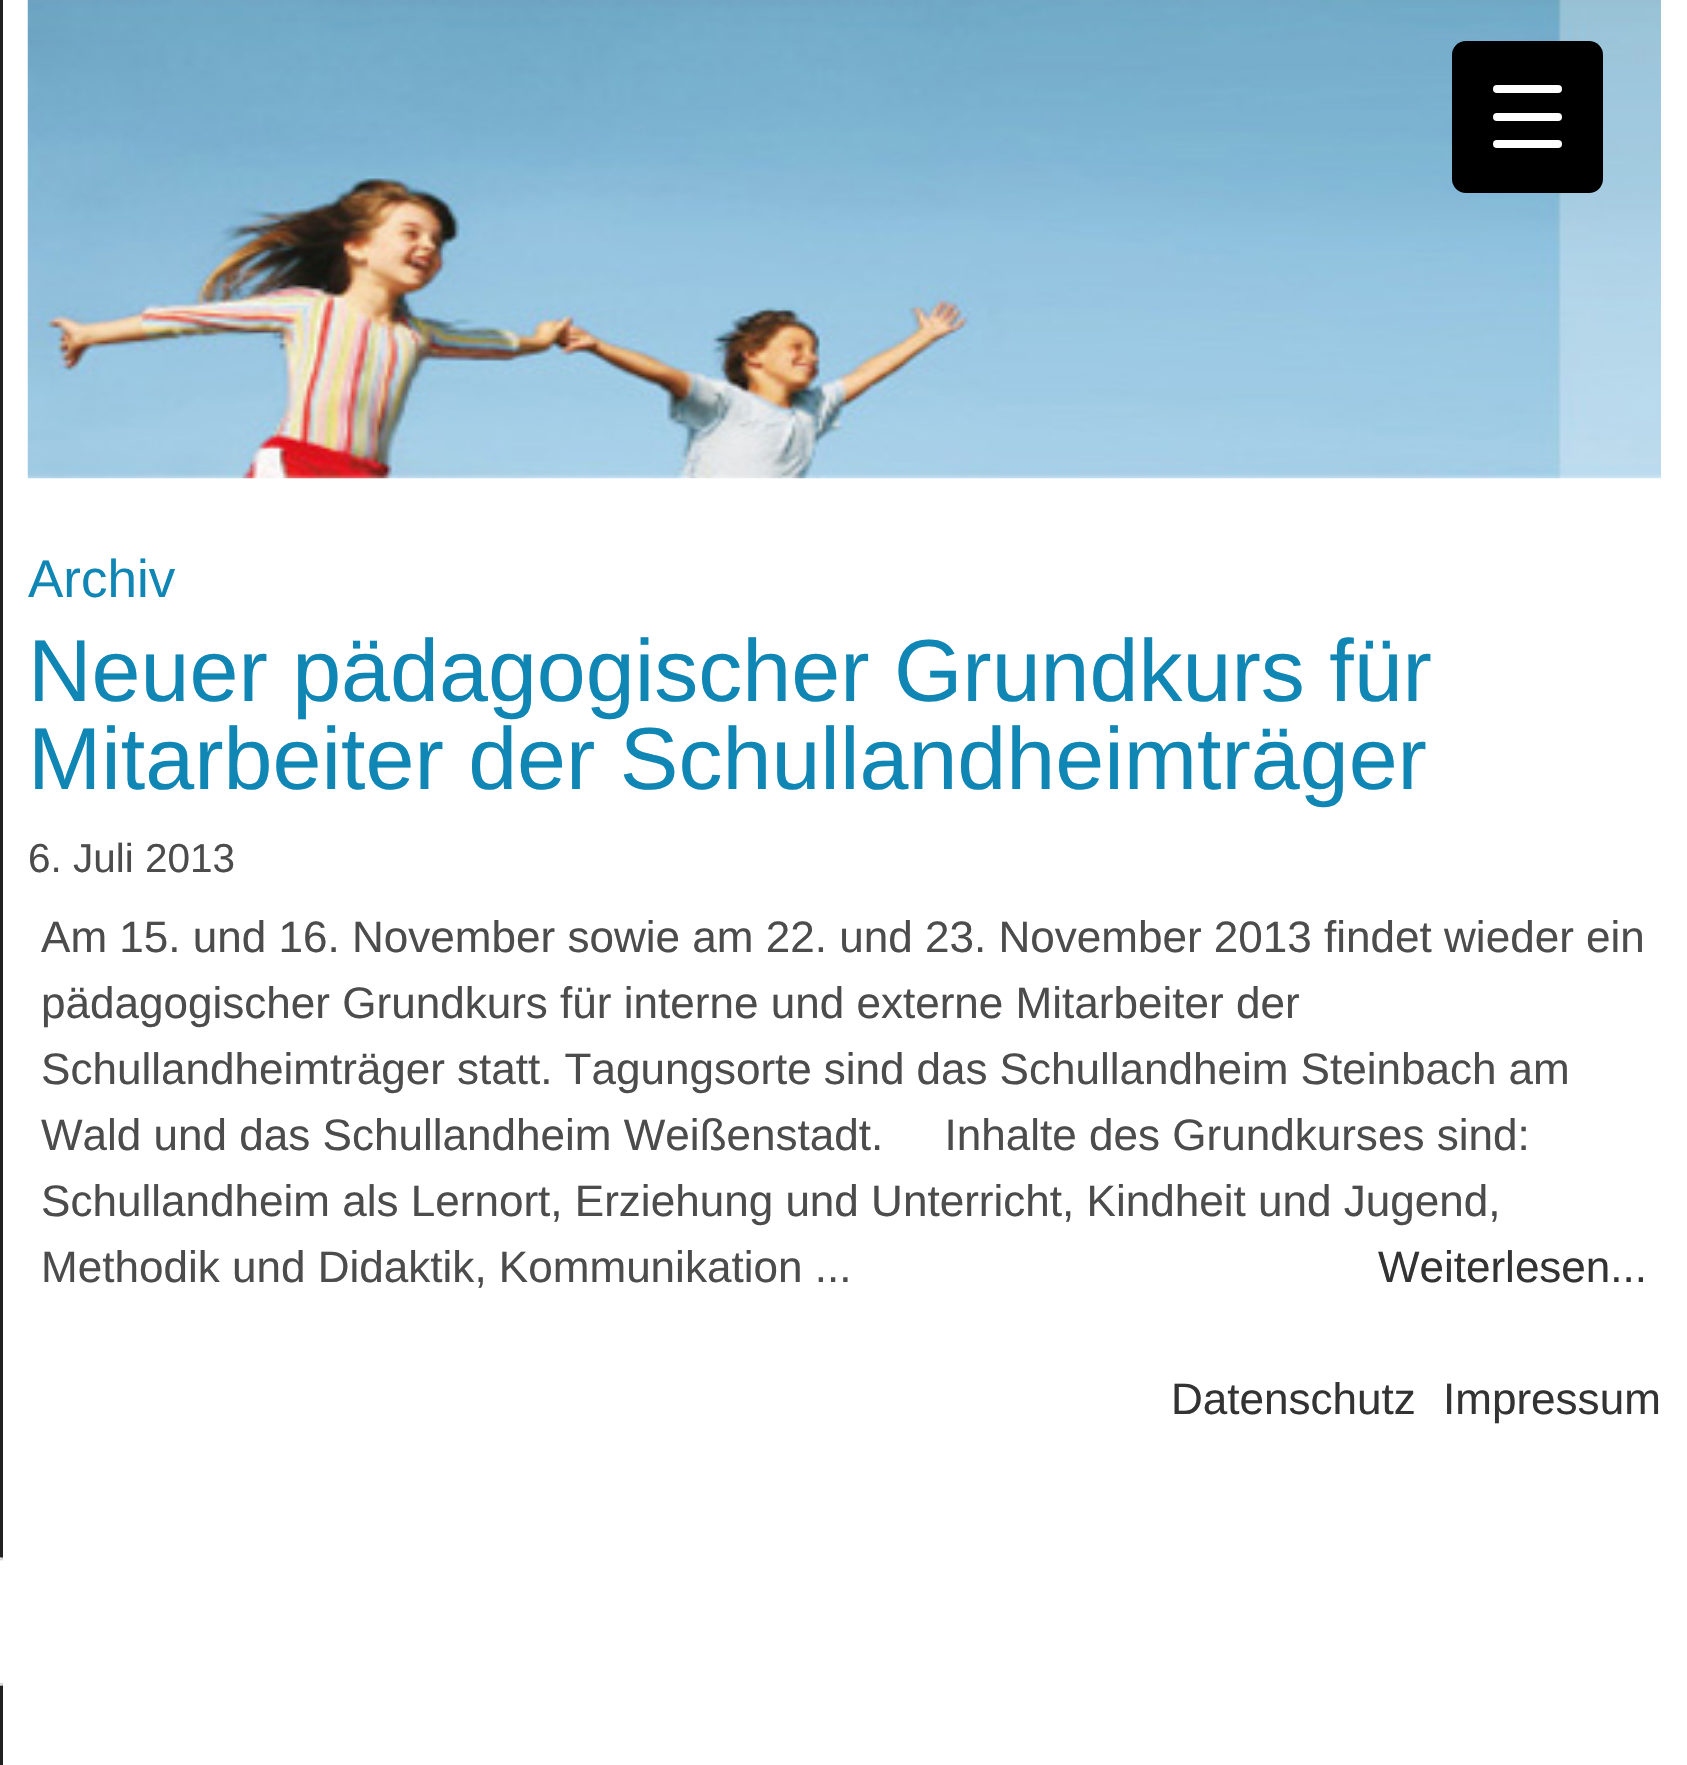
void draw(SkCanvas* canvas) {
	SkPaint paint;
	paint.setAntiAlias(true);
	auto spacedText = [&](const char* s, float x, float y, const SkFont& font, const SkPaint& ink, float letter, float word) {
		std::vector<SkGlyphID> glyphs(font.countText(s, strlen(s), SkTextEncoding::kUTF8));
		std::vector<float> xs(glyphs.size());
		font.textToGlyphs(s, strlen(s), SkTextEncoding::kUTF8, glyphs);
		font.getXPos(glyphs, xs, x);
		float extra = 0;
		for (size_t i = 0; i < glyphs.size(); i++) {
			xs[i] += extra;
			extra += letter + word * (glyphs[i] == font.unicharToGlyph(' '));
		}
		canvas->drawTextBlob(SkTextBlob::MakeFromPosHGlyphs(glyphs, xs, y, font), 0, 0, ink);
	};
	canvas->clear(0xffffffff);
	paint.setColor(0xff212121);
	canvas->drawRect(SkRect::MakeXYWH(0, 0, 3, 1765), paint);
	canvas->save();
	canvas->clipRect(SkRect::MakeXYWH(0, 0, 3, 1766));
	paint.setColor(0xffffffff);
	canvas->drawRoundRect(SkRect::MakeXYWH(-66.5, 1558.5, 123, 126), 63, 63, paint);
	paint.setStroke(true);
	paint.setStrokeWidth(3);
	paint.setColor(0xffdadada);
	canvas->drawRoundRect(SkRect::MakeXYWH(-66.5, 1558.5, 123, 126), 63, 63, paint);
	canvas->restore();
	canvas->drawImageRect(SkImages::DeferredFromEncodedData(SkData::MakeFromFileName("img1.png")), SkRect::MakeXYWH(27, 0, 1634, 479), SkSamplingOptions());
	paint.setStroke(false);
	paint.setColor(0xff000000);
	canvas->drawRoundRect(SkRect::MakeXYWH(1452, 41, 151, 152), 14, 14, paint);
	paint.setColor(0xffffffff);
	canvas->drawRoundRect(SkRect::MakeXYWH(1493, 113, 69, 8), 4, 4, paint);
	canvas->drawRoundRect(SkRect::MakeXYWH(1493, 85, 69, 8), 4, 4, paint);
	canvas->drawRoundRect(SkRect::MakeXYWH(1493, 140, 69, 8), 4, 4, paint);
	SkFont f1(fontMgr->matchFamilyStyle("Liberation Sans", SkFontStyle::Normal()), 53);
	f1.setSubpixel(true);
	paint.setColor(0xff1086b5);
	canvas->drawString("Archiv", 28, 597, f1, paint);
	SkFont f2(fontMgr->matchFamilyStyle("Liberation Sans", SkFontStyle::Normal()), 88);
	f2.setSubpixel(true);
	canvas->drawString("Neuer pädagogischer Grundkurs für", 28, 701, f2, paint);
	canvas->drawString("Mitarbeiter der Schullandheimträger", 28, 789, f2, paint);
	SkFont f3(fontMgr->matchFamilyStyle("Liberation Sans", SkFontStyle::Normal()), 40.5);
	f3.setSubpixel(true);
	paint.setColor(0xff4c4c4c);
	canvas->drawString("6. Juli 2013", 28, 872, f3, paint);
	SkFont f4(fontMgr->matchFamilyStyle("Liberation Sans", SkFontStyle::Normal()), 44.05);
	f4.setSubpixel(true);
	canvas->drawString("Am 15. und 16. November sowie am 22. und 23. November 2013 findet wieder ein", 41, 952, f4, paint);
	canvas->drawString("pädagogischer Grundkurs für interne und externe Mitarbeiter der", 41, 1018, f4, paint);
	spacedText("Schullandheimträger statt. Tagungsorte sind das Schullandheim Steinbach am", 41, 1084, f4, paint, 0, -0.25);
	canvas->drawString("Wald und das Schullandheim Weißenstadt.     Inhalte des Grundkurses sind:", 41, 1150, f4, paint);
	canvas->drawString("Schullandheim als Lernort, Erziehung und Unterricht, Kindheit und Jugend,", 41, 1216, f4, paint);
	canvas->drawString("Methodik und Didaktik, Kommunikation ...", 41, 1282, f4, paint);
	SkFont f5(fontMgr->matchFamilyStyle("Liberation Sans", SkFontStyle::Normal()), 44);
	f5.setSubpixel(true);
	paint.setColor(0xff333333);
	canvas->drawString("Weiterlesen...", 1378, 1282, f5, paint);
	canvas->drawString("Datenschutz", 1171, 1414, f4, paint);
	canvas->drawString("Impressum", 1443, 1414, f4, paint);
}
